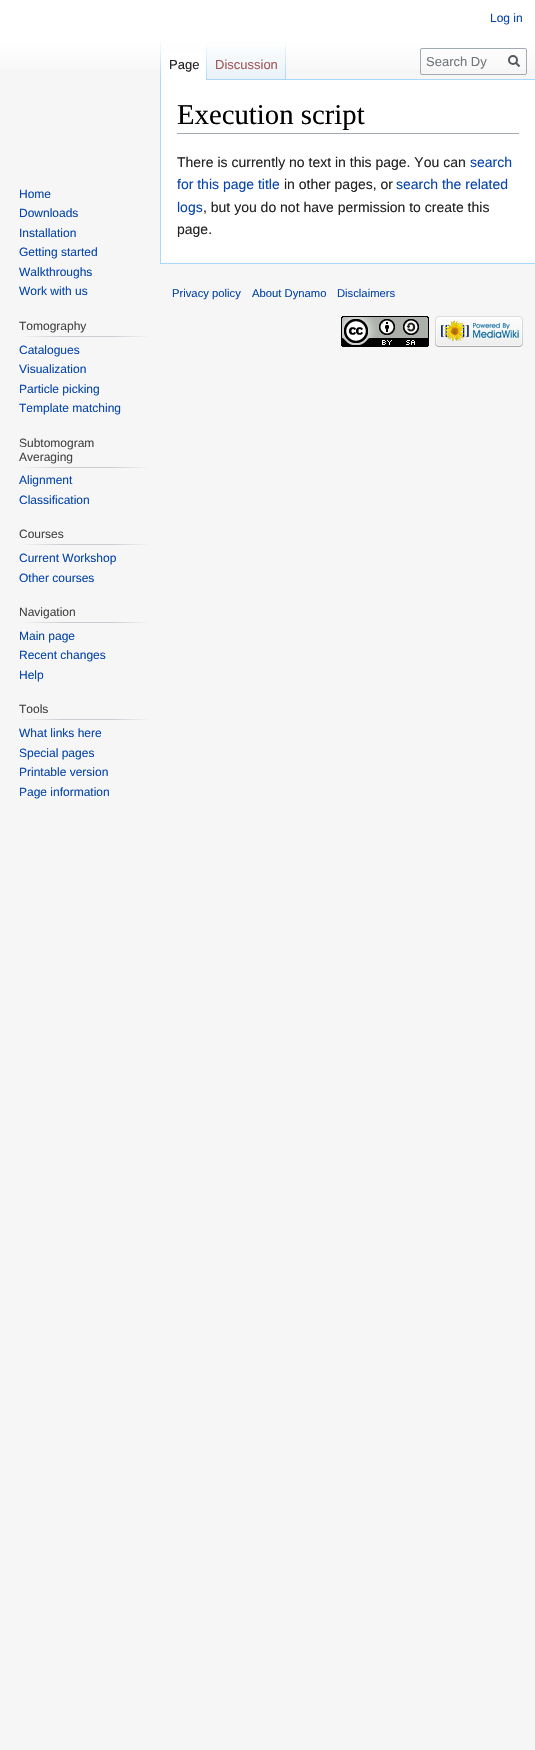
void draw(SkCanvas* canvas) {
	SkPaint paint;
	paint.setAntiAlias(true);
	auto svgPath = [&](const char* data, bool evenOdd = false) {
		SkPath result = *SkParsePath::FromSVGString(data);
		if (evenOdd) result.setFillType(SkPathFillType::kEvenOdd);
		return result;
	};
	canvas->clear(0xfff6f6f6);
	{
		const SkColor colors[] = {0xffffffff, 0xfff6f6f6};
		const float stops[] = {0.5, 1};
		const SkPoint ends[] = {{268, 0}, {268, 80}};
		paint.setShader(SkGradientShader::MakeLinear(ends, colors, stops, 2, SkTileMode::kClamp));
		paint.setAlpha(255);
	}
	canvas->drawRect(SkRect::MakeXYWH(0, 0, 535, 69), paint);
	SkFont f1(fontMgr->matchFamilyStyle("Liberation Sans", SkFontStyle::Normal()), 12);
	f1.setSubpixel(true);
	paint.setShader(nullptr);
	paint.setColor(0xff0645ad);
	canvas->drawString("Log in", 490, 22, f1, paint);
	paint.setColor(0xffa7d7f9);
	canvas->drawRect(SkRect::MakeXYWH(160, 263, 375, 1), paint);
	canvas->drawRect(SkRect::MakeXYWH(160, 79, 1, 185), paint);
	{
		const SkColor colors[] = {0x00a7d7f9, 0xffa7d7f9};
		const float stops[] = {0, 1};
		const SkPoint ends[] = {{161, 40}, {161, 80}};
		paint.setShader(SkGradientShader::MakeLinear(ends, colors, stops, 2, SkTileMode::kClamp));
		paint.setAlpha(255);
	}
	canvas->drawRect(SkRect::MakeXYWH(160, 40, 1, 40), paint);
	paint.setShader(nullptr);
	paint.setColor(0xffffffff);
	canvas->drawRect(SkRect::MakeXYWH(161, 51, 45, 29), paint);
	{
		const SkColor colors[] = {0xffffffff, 0xffa7d7f9};
		const float stops[] = {0, 1};
		const SkPoint ends[] = {{207, 40}, {207, 80}};
		paint.setShader(SkGradientShader::MakeLinear(ends, colors, stops, 2, SkTileMode::kClamp));
		paint.setAlpha(255);
	}
	canvas->drawRect(SkRect::MakeXYWH(206, 40, 1, 40), paint);
	SkFont f2(fontMgr->matchFamilyStyle("Liberation Sans", SkFontStyle::Normal()), 13);
	f2.setSubpixel(true);
	paint.setShader(nullptr);
	paint.setColor(0xff222222);
	canvas->drawString("Page", 169, 69, f2, paint);
	{
		const SkColor colors[] = {0xff77c1f6, 0xffe8f2f8, 0xffffffff};
		const float stops[] = {0, 0.03, 1};
		const SkPoint ends[] = {{247, 80}, {247, 40}};
		paint.setShader(SkGradientShader::MakeLinear(ends, colors, stops, 3, SkTileMode::kClamp));
		paint.setAlpha(255);
	}
	canvas->drawRect(SkRect::MakeXYWH(207, 46, 79, 34), paint);
	{
		const SkColor colors[] = {0x00a7d7f9, 0xffa7d7f9};
		const float stops[] = {0, 1};
		const SkPoint ends[] = {{286, 40}, {286, 80}};
		paint.setShader(SkGradientShader::MakeLinear(ends, colors, stops, 2, SkTileMode::kClamp));
		paint.setAlpha(255);
	}
	canvas->drawRect(SkRect::MakeXYWH(285, 40, 1, 40), paint);
	paint.setShader(nullptr);
	paint.setColor(0xffa55858);
	canvas->drawString("Discussion", 215, 69, f2, paint);
	paint.setStroke(true);
	paint.setStrokeWidth(1);
	paint.setColor(0xffa2a9b1);
	canvas->drawRoundRect(SkRect::MakeXYWH(420.5, 48.5, 106, 26), 1.5, 1.5, paint);
	paint.setStroke(false);
	paint.setColor(0xff72777d);
	canvas->drawString("Search Dy", 426, 66, f2, paint);
	paint.setStroke(true);
	paint.setStrokeWidth(2);
	paint.setColor(0xff54595d);
	canvas->drawPath(svgPath("M519.5 66.5L515.5 62.5"), paint);
	canvas->drawCircle(513, 60, 4, paint);
	paint.setStroke(false);
	paint.setColor(0xff0645ad);
	canvas->drawString("Home", 19, 198, f1, paint);
	canvas->drawString("Downloads", 19, 217, f1, paint);
	canvas->drawString("Installation", 19, 237, f1, paint);
	canvas->drawString("Getting started", 19, 256, f1, paint);
	canvas->drawString("Walkthroughs", 19, 276, f1, paint);
	canvas->drawString("Work with us", 19, 295, f1, paint);
	paint.setColor(0xff444444);
	canvas->drawString("Tomography", 19, 330, f1, paint);
	{
		const SkColor colors[] = {0xfff6f6f6, 0xffc8ccd1, 0xffc8ccd1, 0xfff6f6f6};
		const float stops[] = {0, 0.35, 0.7, 1};
		const SkPoint ends[] = {{19, 337}, {150, 337}};
		paint.setShader(SkGradientShader::MakeLinear(ends, colors, stops, 4, SkTileMode::kClamp));
		paint.setAlpha(255);
	}
	canvas->drawRect(SkRect::MakeXYWH(19, 336, 131, 1), paint);
	paint.setShader(nullptr);
	paint.setColor(0xff0645ad);
	canvas->drawString("Catalogues", 19, 354, f1, paint);
	canvas->drawString("Visualization", 19, 373, f1, paint);
	canvas->drawString("Particle picking", 19, 393, f1, paint);
	canvas->drawString("Template matching", 19, 412, f1, paint);
	paint.setColor(0xff444444);
	canvas->drawString("Subtomogram", 19, 447, f1, paint);
	canvas->drawString("Averaging", 19, 461, f1, paint);
	{
		const SkColor colors[] = {0xfff6f6f6, 0xffc8ccd1, 0xffc8ccd1, 0xfff6f6f6};
		const float stops[] = {0, 0.35, 0.7, 1};
		const SkPoint ends[] = {{19, 468}, {150, 468}};
		paint.setShader(SkGradientShader::MakeLinear(ends, colors, stops, 4, SkTileMode::kClamp));
		paint.setAlpha(255);
	}
	canvas->drawRect(SkRect::MakeXYWH(19, 467, 131, 1), paint);
	paint.setShader(nullptr);
	paint.setColor(0xff0645ad);
	canvas->drawString("Alignment", 19, 484, f1, paint);
	canvas->drawString("Classification", 19, 504, f1, paint);
	paint.setColor(0xff444444);
	canvas->drawString("Courses", 19, 538, f1, paint);
	{
		const SkColor colors[] = {0xfff6f6f6, 0xffc8ccd1, 0xffc8ccd1, 0xfff6f6f6};
		const float stops[] = {0, 0.35, 0.7, 1};
		const SkPoint ends[] = {{19, 545}, {150, 545}};
		paint.setShader(SkGradientShader::MakeLinear(ends, colors, stops, 4, SkTileMode::kClamp));
		paint.setAlpha(255);
	}
	canvas->drawRect(SkRect::MakeXYWH(19, 544, 131, 1), paint);
	paint.setShader(nullptr);
	paint.setColor(0xff0645ad);
	canvas->drawString("Current Workshop", 19, 562, f1, paint);
	canvas->drawString("Other courses", 19, 582, f1, paint);
	paint.setColor(0xff444444);
	canvas->drawString("Navigation", 19, 616, f1, paint);
	{
		const SkColor colors[] = {0xfff6f6f6, 0xffc8ccd1, 0xffc8ccd1, 0xfff6f6f6};
		const float stops[] = {0, 0.35, 0.7, 1};
		const SkPoint ends[] = {{19, 623}, {150, 623}};
		paint.setShader(SkGradientShader::MakeLinear(ends, colors, stops, 4, SkTileMode::kClamp));
		paint.setAlpha(255);
	}
	canvas->drawRect(SkRect::MakeXYWH(19, 622, 131, 1), paint);
	paint.setShader(nullptr);
	paint.setColor(0xff0645ad);
	canvas->drawString("Main page", 19, 640, f1, paint);
	canvas->drawString("Recent changes", 19, 659, f1, paint);
	canvas->drawString("Help", 19, 679, f1, paint);
	paint.setColor(0xff444444);
	canvas->drawString("Tools", 19, 713, f1, paint);
	{
		const SkColor colors[] = {0xfff6f6f6, 0xffc8ccd1, 0xffc8ccd1, 0xfff6f6f6};
		const float stops[] = {0, 0.35, 0.7, 1};
		const SkPoint ends[] = {{19, 720}, {150, 720}};
		paint.setShader(SkGradientShader::MakeLinear(ends, colors, stops, 4, SkTileMode::kClamp));
		paint.setAlpha(255);
	}
	canvas->drawRect(SkRect::MakeXYWH(19, 719, 131, 1), paint);
	paint.setShader(nullptr);
	paint.setColor(0xff0645ad);
	canvas->drawString("What links here", 19, 737, f1, paint);
	canvas->drawString("Special pages", 19, 757, f1, paint);
	canvas->drawString("Printable version", 19, 776, f1, paint);
	canvas->drawString("Page information", 19, 796, f1, paint);
	paint.setColor(0xffffffff);
	canvas->drawRect(SkRect::MakeXYWH(161, 80, 374, 183), paint);
	paint.setColor(0xffa7d7f9);
	canvas->drawRect(SkRect::MakeXYWH(286, 79, 249, 1), paint);
	paint.setColor(0xffa2a9b1);
	canvas->drawRect(SkRect::MakeXYWH(177, 133, 342, 1), paint);
	SkFont f3(fontMgr->matchFamilyStyle("Liberation Serif", SkFontStyle::Normal()), 28.75);
	f3.setSubpixel(true);
	paint.setColor(0xff000000);
	canvas->drawString("Execution script", 177, 124, f3, paint);
	SkFont f4(fontMgr->matchFamilyStyle("Liberation Sans", SkFontStyle::Normal()), 14);
	f4.setSubpixel(true);
	paint.setColor(0xff222222);
	canvas->drawString("There is currently no text in this page. You can", 177, 167, f4, paint);
	paint.setColor(0xff0645ad);
	canvas->drawString("search", 470, 167, f4, paint);
	canvas->drawString("for this page title", 177, 189, f4, paint);
	paint.setColor(0xff222222);
	canvas->drawString("in other pages, or", 284, 189, f4, paint);
	paint.setColor(0xff0645ad);
	canvas->drawString("search the related", 396, 189, f4, paint);
	canvas->drawString("logs", 177, 212, f4, paint);
	paint.setColor(0xff222222);
	canvas->drawString(", but you do not have permission to create this", 203, 212, f4, paint);
	canvas->drawString("page.", 177, 234, f4, paint);
	SkFont f5(fontMgr->matchFamilyStyle("Liberation Sans", SkFontStyle::Normal()), 11.25);
	f5.setSubpixel(true);
	paint.setColor(0xff0645ad);
	canvas->drawString("Privacy policy", 172, 297, f5, paint);
	canvas->drawString("About Dynamo", 252, 297, f5, paint);
	canvas->drawString("Disclaimers", 337, 297, f5, paint);
	canvas->drawImageRect(SkImages::DeferredFromEncodedData(SkData::MakeFromFileName("img1.png")), SkRect::MakeXYWH(341, 316, 88, 31), SkSamplingOptions());
	canvas->drawImageRect(SkImages::DeferredFromEncodedData(SkData::MakeFromFileName("img2.png")), SkRect::MakeXYWH(435, 316, 88, 31), SkSamplingOptions());
}
